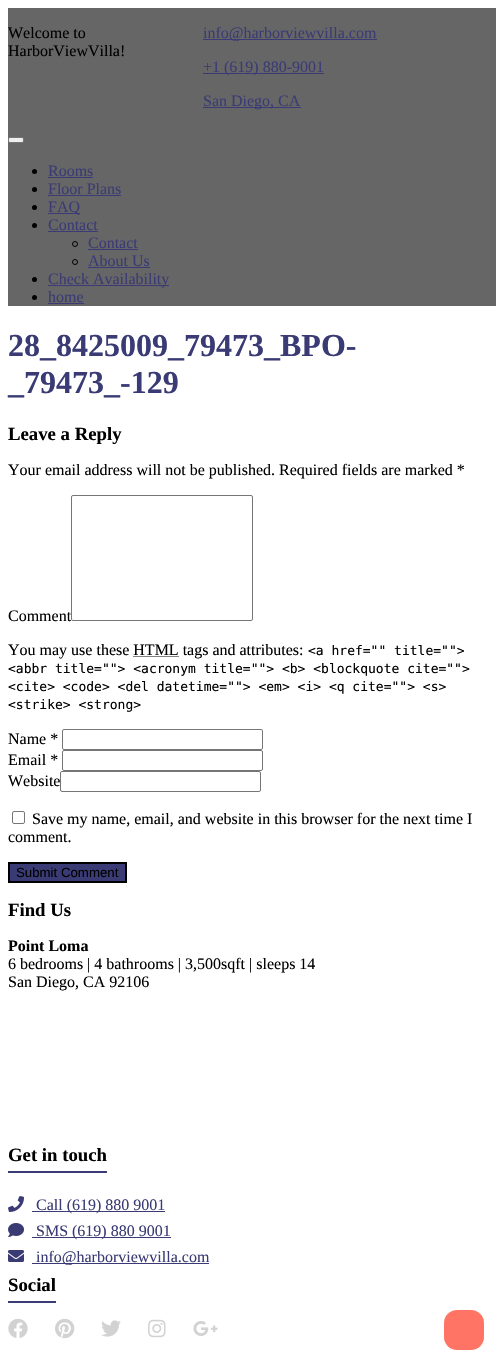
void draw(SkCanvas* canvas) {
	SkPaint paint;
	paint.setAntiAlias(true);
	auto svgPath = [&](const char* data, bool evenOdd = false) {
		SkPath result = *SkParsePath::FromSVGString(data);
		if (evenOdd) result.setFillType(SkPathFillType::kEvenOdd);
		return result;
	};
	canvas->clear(0xffffffff);
	paint.setColor(0xff666666);
	canvas->drawRect(SkRect::MakeXYWH(8, 8, 488, 298), paint);
	SkFont f1(fontMgr->matchFamilyStyle("Liberation Serif", SkFontStyle::Normal()), 16);
	f1.setSubpixel(true);
	paint.setColor(0xff000000);
	canvas->drawString("Welcome to", 8, 38, f1, paint);
	canvas->drawString("HarborViewVilla!", 8, 56, f1, paint);
	paint.setColor(0xff3a3b74);
	canvas->drawRect(SkRect::MakeXYWH(203, 39, 174, 1), paint);
	canvas->drawString("info@harborviewvilla.com", 203, 38, f1, paint);
	canvas->drawRect(SkRect::MakeXYWH(203, 73, 121, 1), paint);
	canvas->drawString("+1 (619) 880-9001", 203, 72, f1, paint);
	canvas->drawRect(SkRect::MakeXYWH(203, 107, 98, 1), paint);
	canvas->drawString("San Diego, CA", 203, 106, f1, paint);
	paint.setColor(0xffefefef);
	canvas->drawRoundRect(SkRect::MakeXYWH(8.5, 137.5, 15, 5), 1.5, 1.5, paint);
	paint.setStroke(true);
	paint.setStrokeWidth(1);
	paint.setColor(0xff767676);
	canvas->drawRoundRect(SkRect::MakeXYWH(8.5, 137.5, 15, 5), 1.5, 1.5, paint);
	paint.setStroke(false);
	paint.setColor(0xff000000);
	canvas->drawCircle(34.5, 171.5, 2.5, paint);
	paint.setColor(0xff3a3b74);
	canvas->drawString("Rooms", 48, 176, f1, paint);
	canvas->drawRect(SkRect::MakeXYWH(48, 177, 45, 1), paint);
	paint.setColor(0xff000000);
	canvas->drawCircle(34.5, 189.5, 2.5, paint);
	paint.setColor(0xff3a3b74);
	canvas->drawString("Floor Plans", 48, 194, f1, paint);
	canvas->drawRect(SkRect::MakeXYWH(48, 195, 73, 1), paint);
	paint.setColor(0xff000000);
	canvas->drawCircle(34.5, 207.5, 2.5, paint);
	paint.setColor(0xff3a3b74);
	canvas->drawRect(SkRect::MakeXYWH(48, 213, 32, 1), paint);
	canvas->drawString("FAQ", 48, 212, f1, paint);
	paint.setColor(0xff000000);
	canvas->drawCircle(34.5, 225.5, 2.5, paint);
	paint.setColor(0xff3a3b74);
	canvas->drawString("Contact", 48, 230, f1, paint);
	canvas->drawRect(SkRect::MakeXYWH(48, 231, 50, 1), paint);
	paint.setStroke(true);
	paint.setColor(0xff000000);
	canvas->drawCircle(75, 244, 2.5, paint);
	paint.setStroke(false);
	paint.setColor(0xff3a3b74);
	canvas->drawString("Contact", 88, 248, f1, paint);
	canvas->drawRect(SkRect::MakeXYWH(88, 249, 50, 1), paint);
	paint.setStroke(true);
	paint.setColor(0xff000000);
	canvas->drawCircle(75, 262, 2.5, paint);
	paint.setStroke(false);
	paint.setColor(0xff3a3b74);
	canvas->drawString("About Us", 88, 266, f1, paint);
	canvas->drawRect(SkRect::MakeXYWH(88, 267, 62, 1), paint);
	paint.setColor(0xff000000);
	canvas->drawCircle(34.5, 279.5, 2.5, paint);
	paint.setColor(0xff3a3b74);
	canvas->drawRect(SkRect::MakeXYWH(48, 285, 121, 1), paint);
	canvas->drawString("Check Availability", 48, 284, f1, paint);
	paint.setColor(0xff000000);
	canvas->drawCircle(34.5, 297.5, 2.5, paint);
	paint.setColor(0xff3a3b74);
	canvas->drawString("home", 48, 302, f1, paint);
	canvas->drawRect(SkRect::MakeXYWH(48, 303, 36, 1), paint);
	SkFont f2(fontMgr->matchFamilyStyle("Liberation Serif", SkFontStyle::Bold()), 32);
	f2.setSubpixel(true);
	canvas->drawString("28_8425009_79473_BPO-", 8, 356, f2, paint);
	canvas->drawString("_79473_-129", 8, 393, f2, paint);
	SkFont f3(fontMgr->matchFamilyStyle("Liberation Serif", SkFontStyle::Bold()), 18.75);
	f3.setSubpixel(true);
	paint.setColor(0xff000000);
	canvas->drawString("Leave a Reply", 8, 440, f3, paint);
	canvas->drawString("Your email address will not be published. Required fields are marked *", 8, 475, f1, paint);
	canvas->drawString("Comment", 8, 621, f1, paint);
	paint.setStroke(true);
	paint.setColor(0xff767676);
	canvas->drawRoundRect(SkRect::MakeXYWH(71.5, 495.5, 181, 125), 1.5, 1.5, paint);
	paint.setStroke(false);
	paint.setColor(0xff000000);
	canvas->drawString("You may use these HTML tags and attributes:", 8, 655, f1, paint);
	SkFont f4(fontMgr->matchFamilyStyle("DejaVu Sans Mono", SkFontStyle::Normal()), 13);
	f4.setSubpixel(true);
	canvas->drawString("<a href=\"\" title=\"\">", 308, 655, f4, paint);
	paint.setStroke(true);
	paint.setPathEffect(SkDashPathEffect::Make({{1, 1}}, 0));
	canvas->drawPath(svgPath("M133.5 656.5H178.5"), paint);
	paint.setPathEffect(nullptr);
	paint.setStroke(false);
	canvas->drawString("<abbr title=\"\"> <acronym title=\"\"> <b> <blockquote cite=\"\">", 8, 673, f4, paint);
	canvas->drawString("<cite> <code> <del datetime=\"\"> <em> <i> <q cite=\"\"> <s>", 8, 691, f4, paint);
	canvas->drawString("<strike> <strong>", 8, 709, f4, paint);
	canvas->drawString("Name *", 8, 744, f1, paint);
	paint.setStroke(true);
	paint.setColor(0xff767676);
	canvas->drawRoundRect(SkRect::MakeXYWH(62.5, 729.5, 200, 20), 1.5, 1.5, paint);
	paint.setStroke(false);
	paint.setColor(0xff000000);
	canvas->drawString("Email *", 8, 765, f1, paint);
	paint.setStroke(true);
	paint.setColor(0xff767676);
	canvas->drawRoundRect(SkRect::MakeXYWH(62.5, 750.5, 200, 20), 1.5, 1.5, paint);
	paint.setStroke(false);
	paint.setColor(0xff000000);
	canvas->drawString("Website", 8, 786, f1, paint);
	paint.setStroke(true);
	paint.setColor(0xff767676);
	canvas->drawRoundRect(SkRect::MakeXYWH(60.5, 771.5, 200, 20), 1.5, 1.5, paint);
	canvas->drawRoundRect(SkRect::MakeXYWH(12.5, 811.5, 12, 12), 1.5, 1.5, paint);
	paint.setStroke(false);
	paint.setColor(0xff000000);
	canvas->drawString("Save my name, email, and website in this browser for the next time I", 32, 824, f1, paint);
	canvas->drawString("comment.", 8, 842, f1, paint);
	paint.setColor(0xff3a3b74);
	canvas->drawRect(SkRect::MakeXYWH(9, 863, 117, 19), paint);
	paint.setStroke(true);
	paint.setStrokeWidth(2);
	paint.setColor(0xff000000);
	canvas->drawRect(SkRect::MakeXYWH(9, 863, 117, 19), paint);
	SkFont f5(fontMgr->matchFamilyStyle("Liberation Sans", SkFontStyle::Normal()), 13.25);
	f5.setSubpixel(true);
	paint.setStroke(false);
	canvas->drawString("Submit Comment", 16, 877, f5, paint);
	canvas->drawString("Find Us", 8, 916, f3, paint);
	SkFont f6(fontMgr->matchFamilyStyle("Liberation Serif", SkFontStyle::Bold()), 16);
	f6.setSubpixel(true);
	canvas->drawString("Point Loma", 8, 951, f6, paint);
	canvas->drawString("6 bedrooms | 4 bathrooms | 3,500sqft | sleeps 14", 8, 969, f1, paint);
	canvas->drawString("San Diego, CA 92106", 8, 987, f1, paint);
	paint.setColor(0xff3a3b74);
	canvas->drawRect(SkRect::MakeXYWH(8, 1171, 99, 2), paint);
	paint.setColor(0xff000000);
	canvas->drawString("Get in touch", 8, 1161, f3, paint);
	canvas->drawImageRect(SkImages::DeferredFromEncodedData(SkData::MakeFromFileName("img1.png")), SkRect::MakeXYWH(8, 1196, 16, 16), SkSamplingOptions());
	paint.setColor(0xff3a3b74);
	canvas->drawRect(SkRect::MakeXYWH(32, 1211, 133, 1), paint);
	canvas->drawString("Call (619) 880 9001", 36, 1210, f1, paint);
	canvas->drawImageRect(SkImages::DeferredFromEncodedData(SkData::MakeFromFileName("img2.png")), SkRect::MakeXYWH(8, 1223, 16, 14), SkSamplingOptions());
	canvas->drawRect(SkRect::MakeXYWH(32, 1237, 139, 1), paint);
	canvas->drawString("SMS (619) 880 9001", 36, 1236, f1, paint);
	canvas->drawImageRect(SkImages::DeferredFromEncodedData(SkData::MakeFromFileName("img3.png")), SkRect::MakeXYWH(8, 1250, 16, 12), SkSamplingOptions());
	canvas->drawRect(SkRect::MakeXYWH(32, 1263, 177, 1), paint);
	canvas->drawString("info@harborviewvilla.com", 36, 1262, f1, paint);
	canvas->drawRect(SkRect::MakeXYWH(8, 1301, 48, 2), paint);
	paint.setColor(0xff000000);
	canvas->drawString("Social", 8, 1291, f3, paint);
	canvas->drawImageRect(SkImages::DeferredFromEncodedData(SkData::MakeFromFileName("img4.png")), SkRect::MakeXYWH(8, 1318, 20, 20), SkSamplingOptions());
	canvas->drawImageRect(SkImages::DeferredFromEncodedData(SkData::MakeFromFileName("img5.png")), SkRect::MakeXYWH(55, 1318, 20, 21), SkSamplingOptions());
	canvas->drawImageRect(SkImages::DeferredFromEncodedData(SkData::MakeFromFileName("img6.png")), SkRect::MakeXYWH(101, 1320, 20, 17), SkSamplingOptions());
	canvas->drawImageRect(SkImages::DeferredFromEncodedData(SkData::MakeFromFileName("img7.png")), SkRect::MakeXYWH(148, 1319, 18, 19), SkSamplingOptions());
	canvas->drawImageRect(SkImages::DeferredFromEncodedData(SkData::MakeFromFileName("img8.png")), SkRect::MakeXYWH(193, 1321, 25, 15), SkSamplingOptions());
	paint.setColor(0xffff7464);
	canvas->drawRoundRect(SkRect::MakeXYWH(444, 1310, 40, 40), 13, 13, paint);
}
